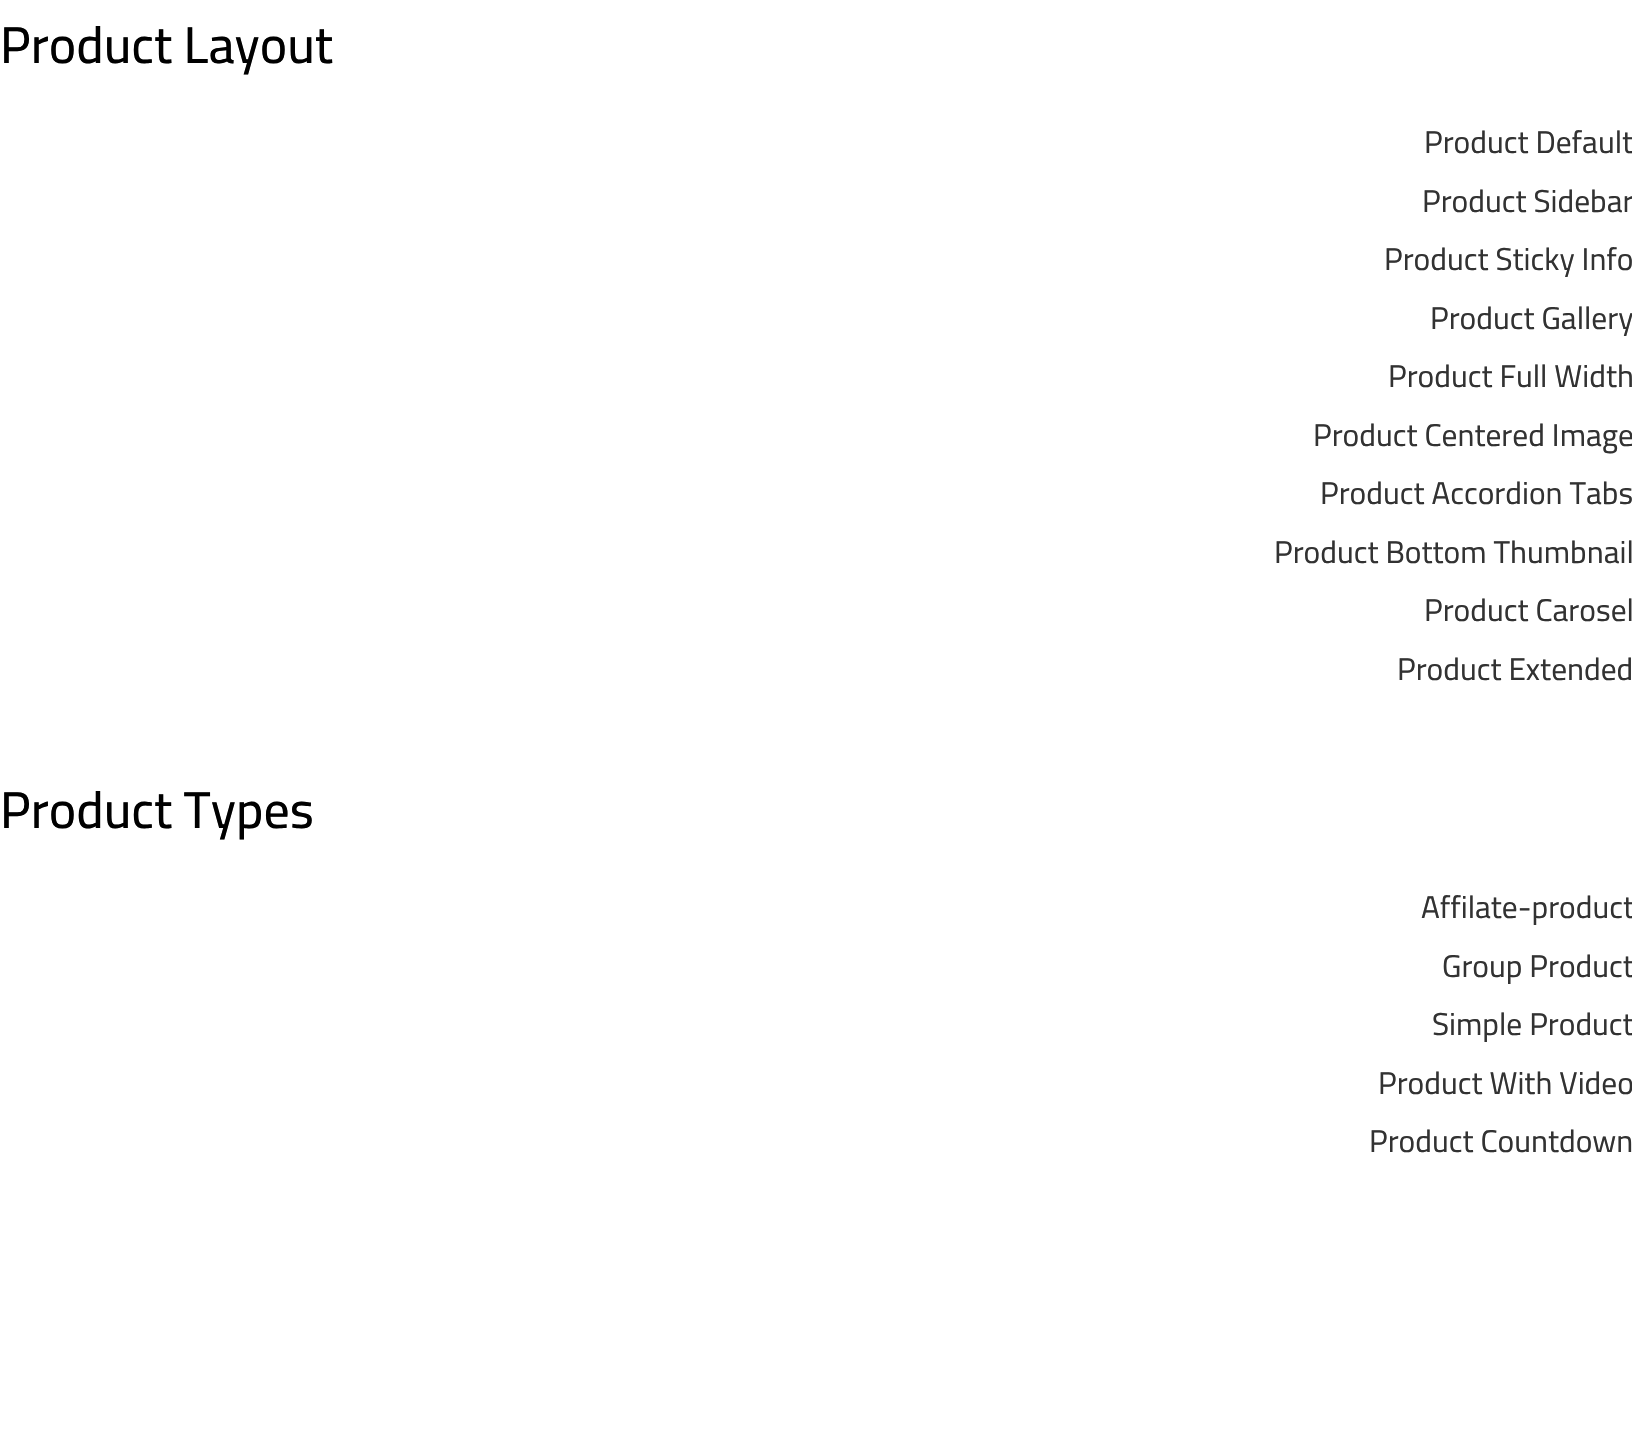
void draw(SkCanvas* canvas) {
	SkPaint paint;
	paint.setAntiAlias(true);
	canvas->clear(0xffffffff);
	SkFont f1(fontMgr->matchFamilyStyle("Cairo", SkFontStyle(500, SkFontStyle::kNormal_Width, SkFontStyle::kUpright_Slant)), 51.75);
	f1.setSubpixel(true);
	paint.setColor(0xff000000);
	canvas->drawString("Product Layout", 0, 63, f1, paint);
	SkFont f2(fontMgr->matchFamilyStyle("Cairo", SkFontStyle::Normal()), 31.5);
	f2.setSubpixel(true);
	paint.setColor(0xff323232);
	canvas->drawString("Product Default", 1424, 153, f2, paint);
	canvas->drawString("Product Sidebar", 1422, 212, f2, paint);
	canvas->drawString("Product Sticky Info", 1384, 270, f2, paint);
	canvas->drawString("Product Gallery", 1430, 329, f2, paint);
	canvas->drawString("Product Full Width", 1388, 387, f2, paint);
	canvas->drawString("Product Centered Image", 1313, 446, f2, paint);
	canvas->drawString("Product Accordion Tabs", 1320, 504, f2, paint);
	canvas->drawString("Product Bottom Thumbnail", 1274, 563, f2, paint);
	canvas->drawString("Product Carosel", 1424, 621, f2, paint);
	canvas->drawString("Product Extended", 1397, 680, f2, paint);
	paint.setColor(0xff000000);
	canvas->drawString("Product Types", 0, 828, f1, paint);
	paint.setColor(0xff323232);
	canvas->drawString("Affilate-product", 1421, 918, f2, paint);
	canvas->drawString("Group Product", 1442, 977, f2, paint);
	canvas->drawString("Simple Product", 1432, 1035, f2, paint);
	canvas->drawString("Product With Video", 1378, 1094, f2, paint);
	canvas->drawString("Product Countdown", 1369, 1152, f2, paint);
}
